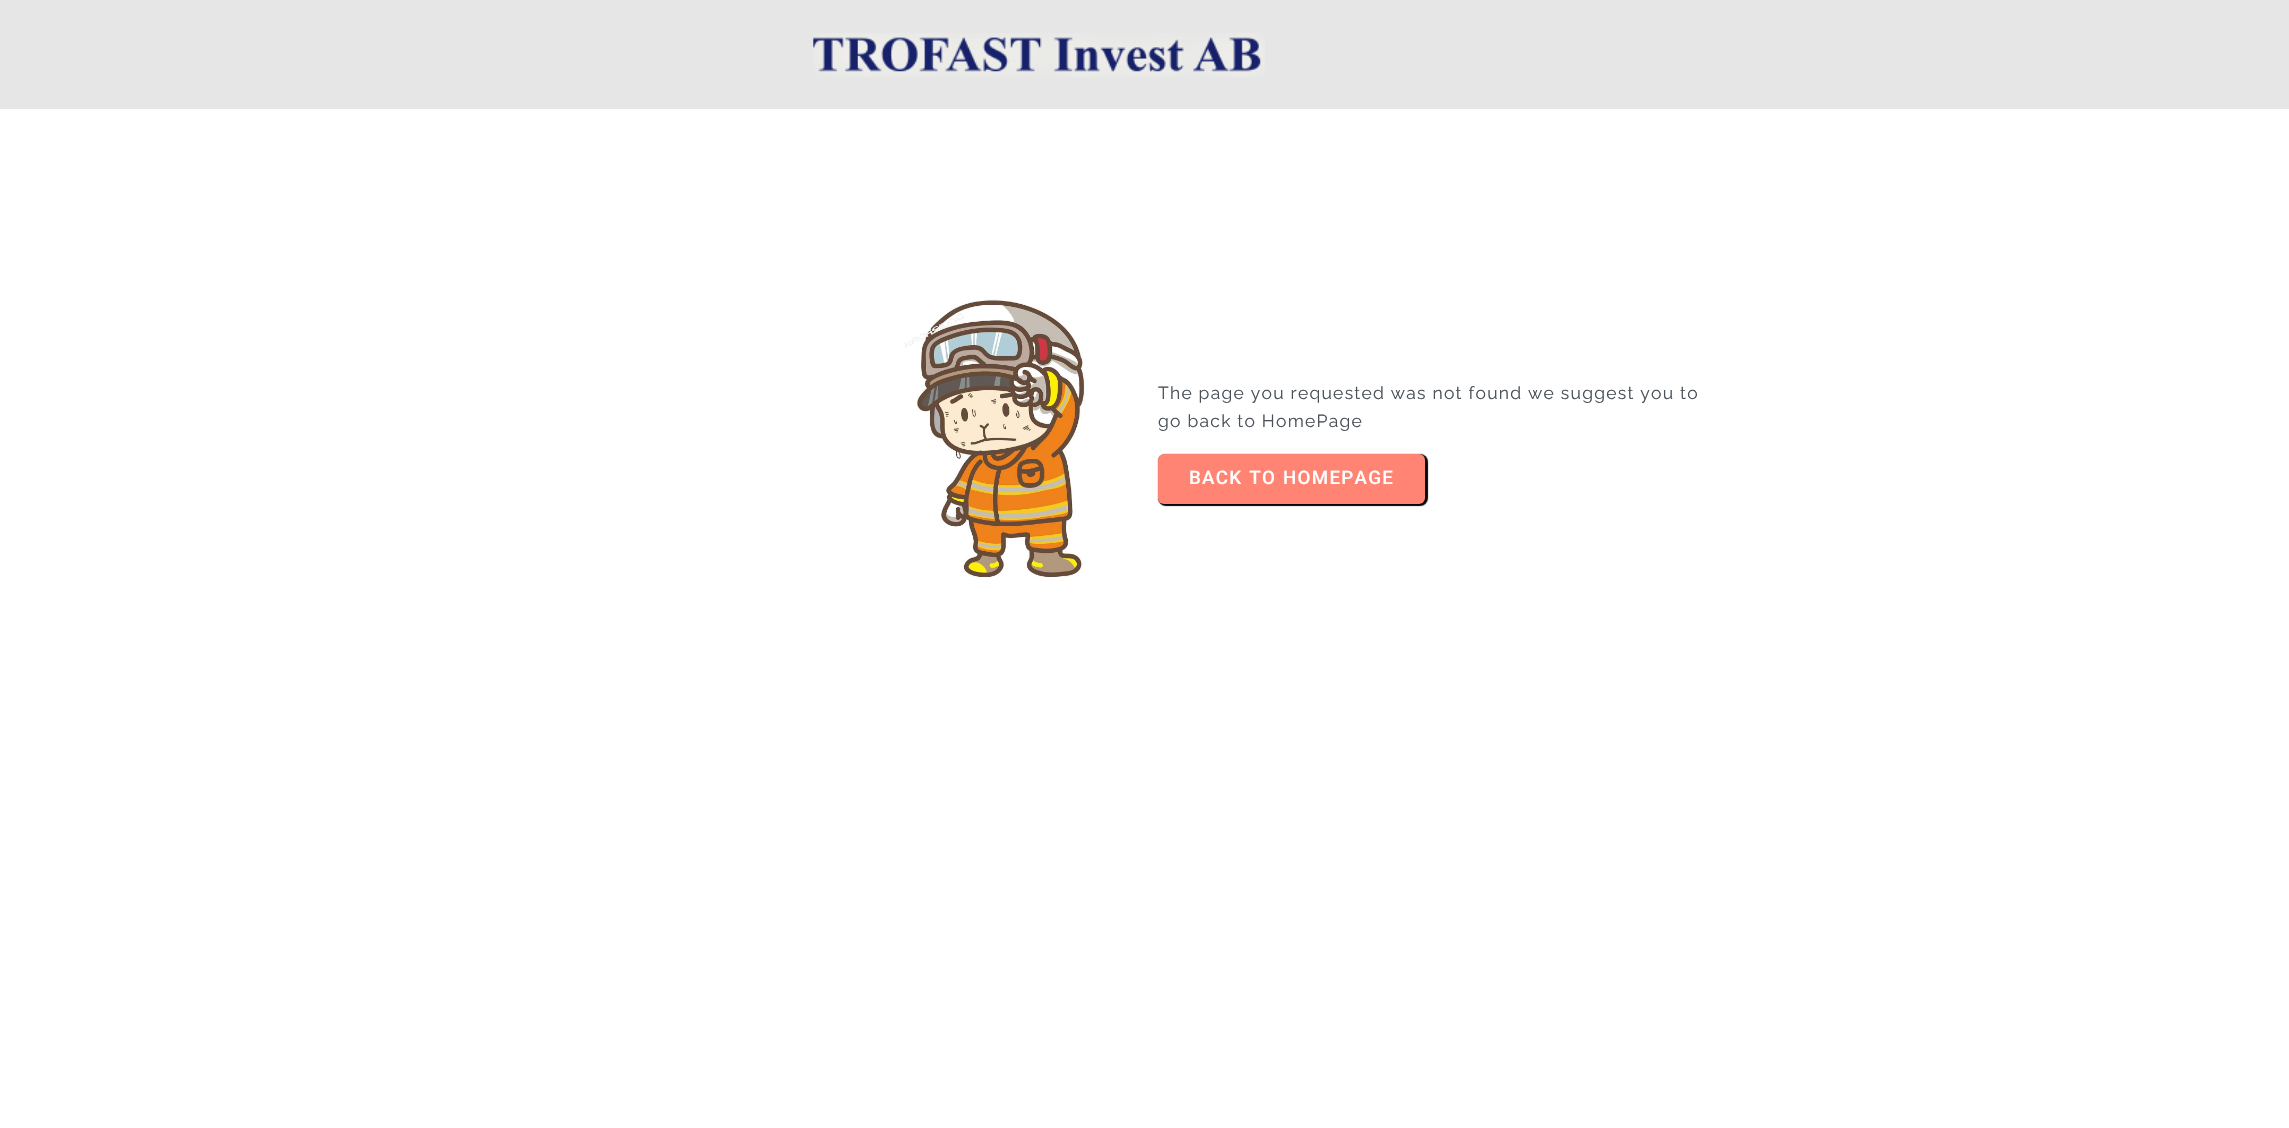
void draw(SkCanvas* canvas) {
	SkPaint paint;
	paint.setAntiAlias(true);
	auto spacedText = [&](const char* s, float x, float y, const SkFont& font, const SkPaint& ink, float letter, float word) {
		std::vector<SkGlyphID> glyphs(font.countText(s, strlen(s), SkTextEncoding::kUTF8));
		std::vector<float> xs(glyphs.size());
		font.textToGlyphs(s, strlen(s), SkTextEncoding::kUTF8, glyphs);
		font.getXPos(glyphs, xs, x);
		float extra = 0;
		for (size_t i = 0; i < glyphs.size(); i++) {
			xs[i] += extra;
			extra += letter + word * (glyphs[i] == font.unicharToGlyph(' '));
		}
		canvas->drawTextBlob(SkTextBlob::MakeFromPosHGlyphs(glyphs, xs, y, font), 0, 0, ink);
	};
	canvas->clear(0xffffffff);
	paint.setColor(0xffe6e6e6);
	canvas->drawRect(SkRect::MakeXYWH(0, 0, 2289, 109), paint);
	canvas->drawImageRect(SkImages::DeferredFromEncodedData(SkData::MakeFromFileName("img1.png")), SkRect::MakeXYWH(813, 33, 452, 44), SkSamplingOptions());
	canvas->drawImageRect(SkImages::DeferredFromEncodedData(SkData::MakeFromFileName("img2.png")), SkRect::MakeXYWH(904, 299, 181, 279), SkSamplingOptions());
	SkFont f1(fontMgr->matchFamilyStyle("Raleway", SkFontStyle(100, SkFontStyle::kNormal_Width, SkFontStyle::kUpright_Slant)), 17.5);
	f1.setSubpixel(true);
	paint.setColor(0xff495057);
	spacedText("The page you requested was not found we suggest you to", 1158, 399, f1, paint, 1.25, 0);
	spacedText("go back to HomePage", 1158, 427, f1, paint, 1.25, 0);
	paint.setColor(0xff000000);
	paint.setMaskFilter(SkMaskFilter::MakeBlur(kNormal_SkBlurStyle, 0.5));
	canvas->drawRoundRect(SkRect::MakeXYWH(1158, 454, 270, 52), 8, 8, paint);
	paint.setMaskFilter(nullptr);
	paint.setColor(0xffff8474);
	canvas->drawRoundRect(SkRect::MakeXYWH(1158, 454, 267, 50), 6, 6, paint);
	SkFont f2(fontMgr->matchFamilyStyle("Roboto", SkFontStyle(500, SkFontStyle::kNormal_Width, SkFontStyle::kUpright_Slant)), 18.75);
	f2.setSubpixel(true);
	paint.setColor(0xffffffff);
	spacedText("BACK TO HOMEPAGE", 1189, 484, f2, paint, 1.25, 1);
}
